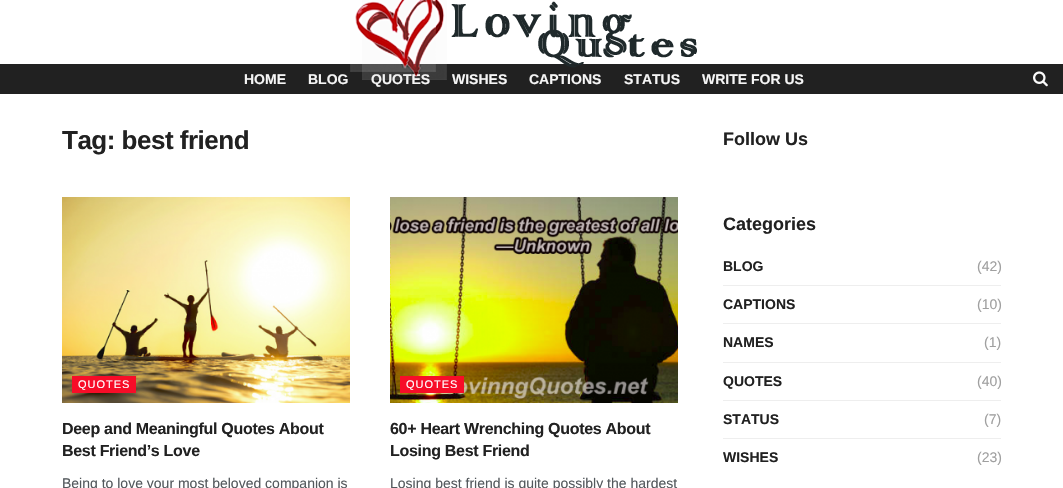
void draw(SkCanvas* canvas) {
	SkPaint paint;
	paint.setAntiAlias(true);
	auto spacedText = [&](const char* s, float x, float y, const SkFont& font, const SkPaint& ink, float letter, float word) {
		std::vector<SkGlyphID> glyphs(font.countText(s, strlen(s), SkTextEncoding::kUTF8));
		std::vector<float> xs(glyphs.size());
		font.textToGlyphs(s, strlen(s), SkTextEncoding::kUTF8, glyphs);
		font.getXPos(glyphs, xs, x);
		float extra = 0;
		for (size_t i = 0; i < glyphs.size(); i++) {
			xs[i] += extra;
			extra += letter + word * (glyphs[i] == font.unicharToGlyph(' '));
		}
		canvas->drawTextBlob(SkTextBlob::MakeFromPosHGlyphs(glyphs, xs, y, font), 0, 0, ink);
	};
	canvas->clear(0xffffffff);
	paint.setColor(0xff212121);
	canvas->drawRect(SkRect::MakeXYWH(0, 64, 1063, 30), paint);
	SkFont f1(fontMgr->matchFamilyStyle("Liberation Sans", SkFontStyle::Bold()), 14);
	f1.setSubpixel(true);
	paint.setColor(0xfff5f5f5);
	canvas->drawString("QUOTES", 371, 84, f1, paint);
	canvas->drawString("WISHES", 452, 84, f1, paint);
	canvas->drawString("CAPTIONS", 529, 84, f1, paint);
	canvas->drawString("STATUS", 624, 84, f1, paint);
	canvas->drawImageRect(SkImages::DeferredFromEncodedData(SkData::MakeFromFileName("img1.png")), SkRect::MakeXYWH(350, 0, 347, 80), SkSamplingOptions());
	canvas->drawString("HOME", 244, 84, f1, paint);
	canvas->drawString("BLOG", 308, 84, f1, paint);
	canvas->drawString("WRITE FOR US", 702, 84, f1, paint);
	canvas->drawImageRect(SkImages::DeferredFromEncodedData(SkData::MakeFromFileName("img2.png")), SkRect::MakeXYWH(1033, 71, 15, 16), SkSamplingOptions());
	SkFont f2(fontMgr->matchFamilyStyle("Liberation Sans", SkFontStyle::Bold()), 26);
	f2.setSubpixel(true);
	paint.setColor(0xff212121);
	spacedText("Tag: best friend", 62, 149, f2, paint, -0.5, 0);
	canvas->drawImageRect(SkImages::DeferredFromEncodedData(SkData::MakeFromFileName("img3.png")), SkRect::MakeXYWH(62, 197, 288, 206), SkSamplingOptions());
	paint.setColor(0xfff70d28);
	canvas->drawRect(SkRect::MakeXYWH(72, 376, 64, 17), paint);
	SkFont f3(fontMgr->matchFamilyStyle("Liberation Sans", SkFontStyle::Normal()), 11);
	f3.setSubpixel(true);
	paint.setColor(0xffffffff);
	spacedText("QUOTES", 78, 388, f3, paint, 1, 0);
	SkFont f4(fontMgr->matchFamilyStyle("Liberation Sans", SkFontStyle::Bold()), 16);
	f4.setSubpixel(true);
	paint.setColor(0xff212121);
	spacedText("Deep and Meaningful Quotes About", 62, 434, f4, paint, -0.3, 0);
	spacedText("Best Friend’s Love", 62, 456, f4, paint, -0.3, 0);
	SkFont f5(fontMgr->matchFamilyStyle("Liberation Sans", SkFontStyle::Normal()), 14);
	f5.setSubpixel(true);
	paint.setColor(0xff53585c);
	canvas->drawString("Being to love your most beloved companion is", 62, 488, f5, paint);
	canvas->drawImageRect(SkImages::DeferredFromEncodedData(SkData::MakeFromFileName("img4.png")), SkRect::MakeXYWH(390, 197, 288, 206), SkSamplingOptions());
	paint.setColor(0xfff70d28);
	canvas->drawRect(SkRect::MakeXYWH(400, 376, 64, 17), paint);
	paint.setColor(0xffffffff);
	spacedText("QUOTES", 406, 388, f3, paint, 1, 0);
	paint.setColor(0xff212121);
	spacedText("60+ Heart Wrenching Quotes About", 390, 434, f4, paint, -0.3, 0);
	spacedText("Losing Best Friend", 390, 456, f4, paint, -0.3, 0);
	paint.setColor(0xff53585c);
	canvas->drawString("Losing best friend is quite possibly the hardest", 390, 488, f5, paint);
	SkFont f6(fontMgr->matchFamilyStyle("Liberation Sans", SkFontStyle::Bold()), 18);
	f6.setSubpixel(true);
	paint.setColor(0xff212121);
	canvas->drawString("Follow Us", 723, 145, f6, paint);
	canvas->drawString("Categories", 723, 230, f6, paint);
	canvas->drawString("BLOG", 723, 271, f1, paint);
	paint.setColor(0xffa0a0a0);
	canvas->drawString("(42)", 977, 271, f5, paint);
	paint.setColor(0xffeeeeee);
	canvas->drawRect(SkRect::MakeXYWH(723, 285, 278, 1), paint);
	paint.setColor(0xff212121);
	canvas->drawString("CAPTIONS", 723, 309, f1, paint);
	paint.setColor(0xffa0a0a0);
	canvas->drawString("(10)", 977, 309, f5, paint);
	paint.setColor(0xffeeeeee);
	canvas->drawRect(SkRect::MakeXYWH(723, 323, 278, 1), paint);
	paint.setColor(0xff212121);
	canvas->drawString("NAMES", 723, 347, f1, paint);
	paint.setColor(0xffa0a0a0);
	canvas->drawString("(1)", 984, 347, f5, paint);
	paint.setColor(0xffeeeeee);
	canvas->drawRect(SkRect::MakeXYWH(723, 362, 278, 1), paint);
	paint.setColor(0xff212121);
	canvas->drawString("QUOTES", 723, 386, f1, paint);
	paint.setColor(0xffa0a0a0);
	canvas->drawString("(40)", 977, 386, f5, paint);
	paint.setColor(0xffeeeeee);
	canvas->drawRect(SkRect::MakeXYWH(723, 400, 278, 1), paint);
	paint.setColor(0xff212121);
	canvas->drawString("STATUS", 723, 424, f1, paint);
	paint.setColor(0xffa0a0a0);
	canvas->drawString("(7)", 984, 424, f5, paint);
	paint.setColor(0xffeeeeee);
	canvas->drawRect(SkRect::MakeXYWH(723, 438, 278, 1), paint);
	paint.setColor(0xff212121);
	canvas->drawString("WISHES", 723, 462, f1, paint);
	paint.setColor(0xffa0a0a0);
	canvas->drawString("(23)", 977, 462, f5, paint);
}
